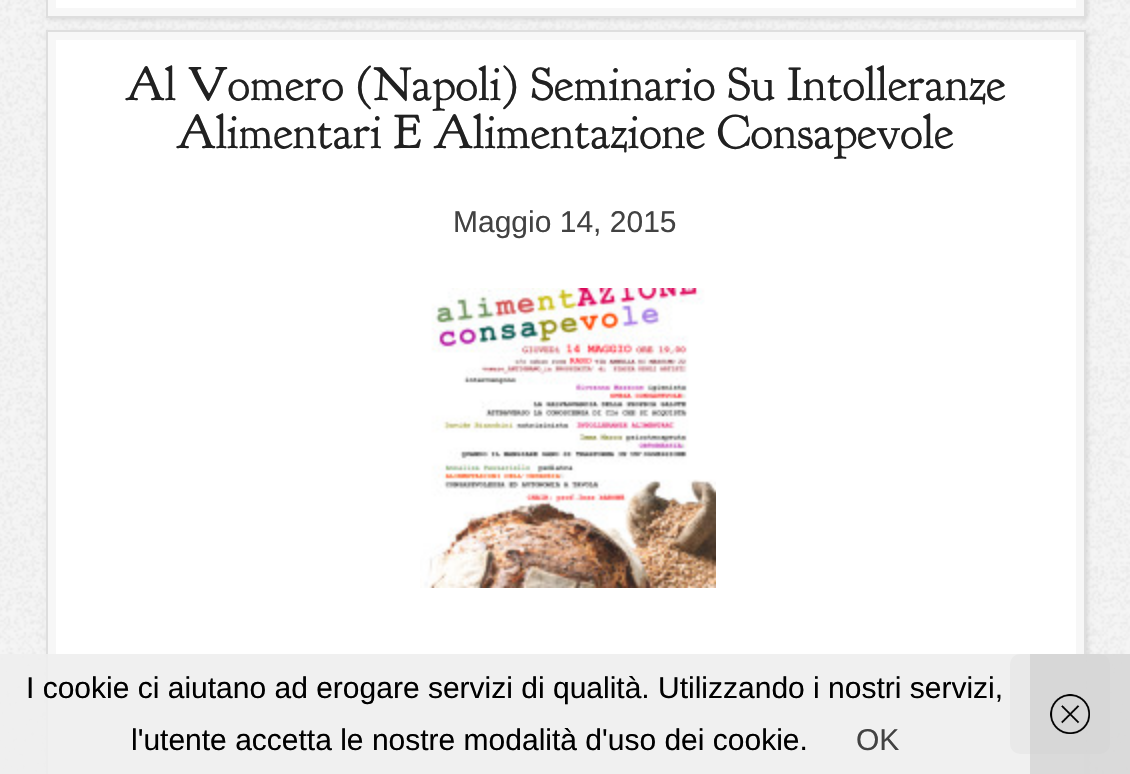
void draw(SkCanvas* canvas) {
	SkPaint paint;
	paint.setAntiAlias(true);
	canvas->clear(0xffffffff);
	canvas->drawImageRect(SkImages::DeferredFromEncodedData(SkData::MakeFromFileName("img1.png")), SkRect::MakeXYWH(0, 0, 1130, 774), SkSamplingOptions());
	paint.setColor(0x1a000000);
	paint.setMaskFilter(SkMaskFilter::MakeBlur(kNormal_SkBlurStyle, 2));
	canvas->drawRect(SkRect::MakeXYWH(48, -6, 1040, 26), paint);
	paint.setMaskFilter(nullptr);
	paint.setColor(0xfff7f7f7);
	canvas->drawRect(SkRect::MakeXYWH(47, -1, 1038, 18), paint);
	paint.setStroke(true);
	paint.setStrokeWidth(2);
	paint.setColor(0xffdedede);
	canvas->drawRect(SkRect::MakeXYWH(47, -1, 1038, 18), paint);
	paint.setStroke(false);
	paint.setColor(0xffffffff);
	canvas->drawRect(SkRect::MakeXYWH(56, 0, 1020, 8), paint);
	paint.setColor(0x1a000000);
	paint.setMaskFilter(SkMaskFilter::MakeBlur(kNormal_SkBlurStyle, 2));
	canvas->drawRect(SkRect::MakeXYWH(48, 32, 1040, 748), paint);
	paint.setMaskFilter(nullptr);
	paint.setColor(0xfff7f7f7);
	canvas->drawRect(SkRect::MakeXYWH(47, 31, 1038, 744), paint);
	paint.setStroke(true);
	paint.setColor(0xffdedede);
	canvas->drawRect(SkRect::MakeXYWH(47, 31, 1038, 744), paint);
	paint.setStroke(false);
	paint.setColor(0xffffffff);
	canvas->drawRect(SkRect::MakeXYWH(56, 40, 1020, 734), paint);
	SkFont f1(fontMgr->matchFamilyStyle("Goudy Bookletter 1911", SkFontStyle::Normal()), 48);
	f1.setSubpixel(true);
	paint.setColor(0xff212121);
	canvas->drawString("Al Vomero (Napoli) Seminario Su Intolleranze", 125, 100, f1, paint);
	canvas->drawString("Alimentari E Alimentazione Consapevole", 176, 148, f1, paint);
	SkFont f2(fontMgr->matchFamilyStyle("Liberation Sans", SkFontStyle::Normal()), 30);
	f2.setSubpixel(true);
	paint.setColor(0xff424242);
	canvas->drawString("Maggio 14, 2015", 453, 232, f2, paint);
	canvas->drawImageRect(SkImages::DeferredFromEncodedData(SkData::MakeFromFileName("img2.png")), SkRect::MakeXYWH(420, 288, 296, 300), SkSamplingOptions());
	paint.setColor(0x4d000000);
	canvas->drawRoundRect(SkRect::MakeXYWH(1010, 654, 100, 100), 10, 10, paint);
	paint.setColor(0xe6eeeeee);
	canvas->drawRect(SkRect::MakeXYWH(0, 654, 1130, 120), paint);
	paint.setColor(0xff000000);
	canvas->drawString("I cookie ci aiutano ad erogare servizi di qualità. Utilizzando i nostri servizi,", 26, 698, f2, paint);
	canvas->drawString("l'utente accetta le nostre modalità d'uso dei cookie.", 131, 750, f2, paint);
	paint.setColor(0xff424242);
	canvas->drawString("OK", 856, 750, f2, paint);
	paint.setColor(0x99cccccc);
	canvas->drawRect(SkRect::MakeXYWH(1030, 654, 100, 120), paint);
	canvas->drawImageRect(SkImages::DeferredFromEncodedData(SkData::MakeFromFileName("img3.png")), SkRect::MakeXYWH(1050, 694, 40, 40), SkSamplingOptions());
}
